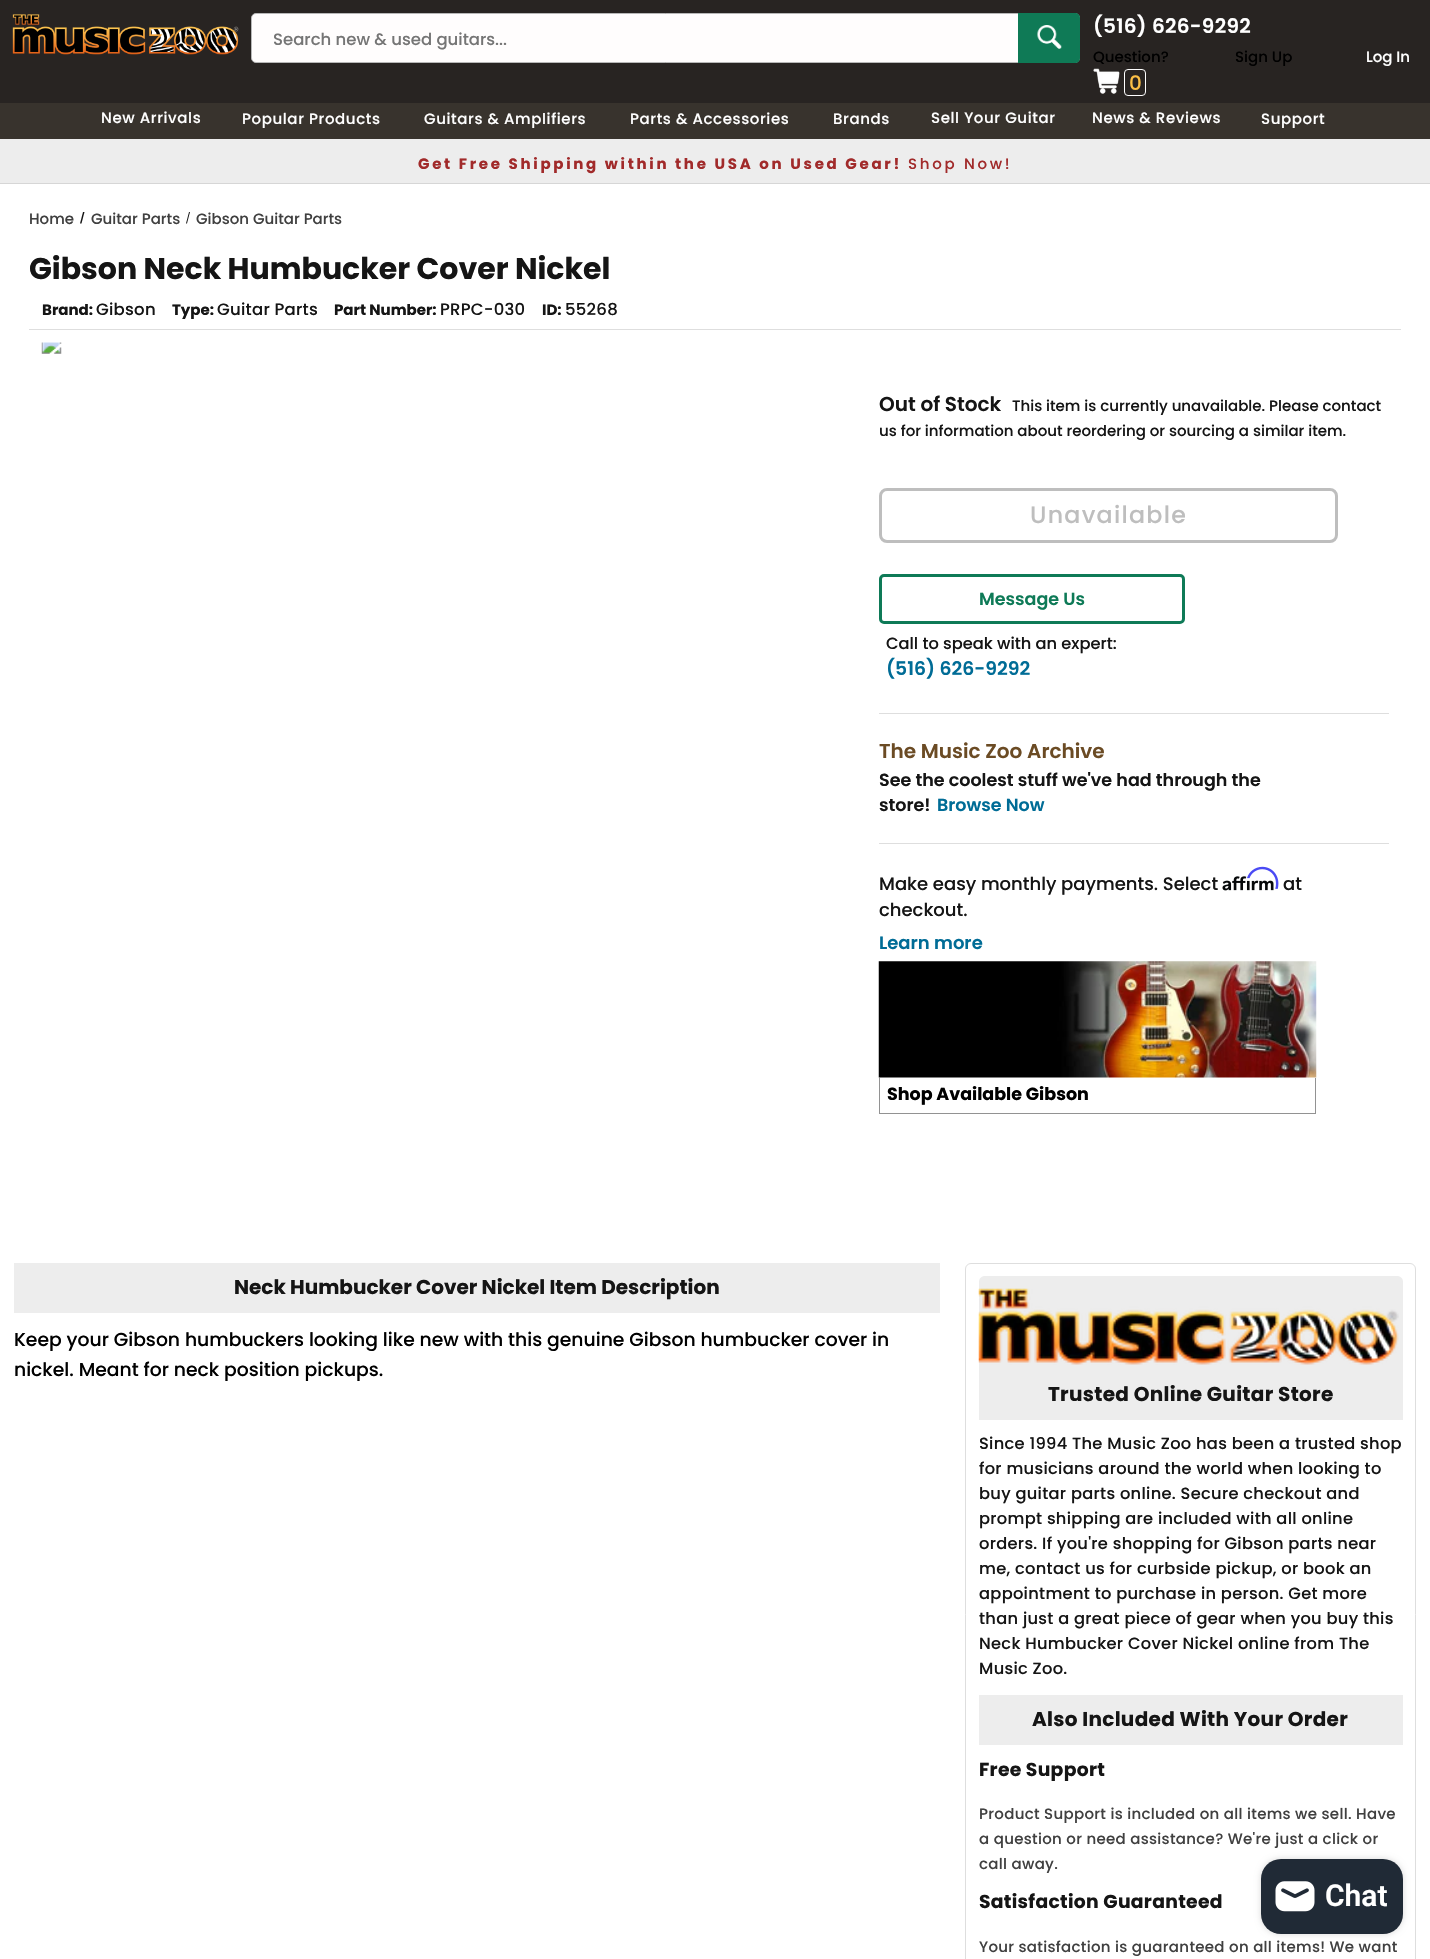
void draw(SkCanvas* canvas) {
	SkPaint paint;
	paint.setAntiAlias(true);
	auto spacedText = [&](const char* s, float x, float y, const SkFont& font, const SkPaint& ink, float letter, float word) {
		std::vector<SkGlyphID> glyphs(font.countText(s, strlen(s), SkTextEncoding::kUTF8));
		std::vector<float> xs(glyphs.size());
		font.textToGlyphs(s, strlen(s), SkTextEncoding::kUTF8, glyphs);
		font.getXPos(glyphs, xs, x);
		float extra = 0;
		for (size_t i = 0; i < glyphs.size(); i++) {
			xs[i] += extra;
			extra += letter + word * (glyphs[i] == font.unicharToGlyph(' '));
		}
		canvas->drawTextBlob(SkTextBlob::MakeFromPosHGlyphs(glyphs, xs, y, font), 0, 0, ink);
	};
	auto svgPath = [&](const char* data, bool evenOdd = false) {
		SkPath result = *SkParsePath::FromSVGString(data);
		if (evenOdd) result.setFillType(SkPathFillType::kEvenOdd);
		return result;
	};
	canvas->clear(0xffffffff);
	paint.setColor(0xff282422);
	canvas->drawRect(SkRect::MakeXYWH(0, 0, 1430, 103), paint);
	paint.setColor(0xffd6d6d6);
	canvas->drawRect(SkRect::MakeXYWH(0, 183, 1430, 1), paint);
	canvas->drawImageRect(SkImages::DeferredFromEncodedData(SkData::MakeFromFileName("img1.png")), SkRect::MakeXYWH(12, 14, 227, 41), SkSamplingOptions());
	paint.setColor(0xfffffdfd);
	canvas->drawRoundRect(SkRect::MakeXYWH(251.5, 13.5, 828, 49), 4.5, 4.5, paint);
	paint.setStroke(true);
	paint.setStrokeWidth(1);
	paint.setColor(0xffb7b7b7);
	canvas->drawRoundRect(SkRect::MakeXYWH(251.5, 13.5, 828, 49), 4.5, 4.5, paint);
	SkFont f1(fontMgr->matchFamilyStyle("Poppins", SkFontStyle(500, SkFontStyle::kNormal_Width, SkFontStyle::kUpright_Slant)), 16.5);
	f1.setSubpixel(true);
	paint.setStroke(false);
	paint.setColor(0xff757575);
	canvas->drawString("Search new & used guitars...", 273, 45, f1, paint);
	paint.setColor(0xff0f7a56);
	canvas->drawPath(svgPath("M1018 13H1075C1078 13 1080 15 1080 18V58C1080 61 1078 63 1075 63H1018Z"), paint);
	canvas->drawImageRect(SkImages::DeferredFromEncodedData(SkData::MakeFromFileName("img2.png")), SkRect::MakeXYWH(1037, 25, 25, 24), SkSamplingOptions());
	SkFont f2(fontMgr->matchFamilyStyle("Poppins", SkFontStyle(600, SkFontStyle::kNormal_Width, SkFontStyle::kUpright_Slant)), 20);
	f2.setSubpixel(true);
	paint.setColor(0xffffffff);
	spacedText("(516) 626-9292", 1093, 33, f2, paint, 0.3, 0);
	SkFont f3(fontMgr->matchFamilyStyle("Poppins", SkFontStyle(500, SkFontStyle::kNormal_Width, SkFontStyle::kUpright_Slant)), 15);
	f3.setSubpixel(true);
	paint.setColor(0xff000000);
	canvas->drawString("Question?", 1093, 62, f3, paint);
	canvas->drawString("Sign Up", 1235, 62, f3, paint);
	paint.setColor(0xffffffff);
	canvas->drawString("Log In", 1366, 62, f3, paint);
	canvas->drawImageRect(SkImages::DeferredFromEncodedData(SkData::MakeFromFileName("img3.png")), SkRect::MakeXYWH(1093, 68, 27, 26), SkSamplingOptions());
	paint.setStroke(true);
	canvas->drawRoundRect(SkRect::MakeXYWH(1124.5, 69.5, 21, 26), 3.5, 3.5, paint);
	SkFont f4(fontMgr->matchFamilyStyle("Poppins", SkFontStyle(500, SkFontStyle::kNormal_Width, SkFontStyle::kUpright_Slant)), 20);
	f4.setSubpixel(true);
	paint.setStroke(false);
	paint.setColor(0xfffcbf45);
	canvas->drawString("0", 1129, 90, f4, paint);
	paint.setColor(0xff38332d);
	canvas->drawRect(SkRect::MakeXYWH(0, 103, 1430, 36), paint);
	paint.setColor(0xffffffff);
	spacedText("New Arrivals", 101, 123, f3, paint, 0.6, 0);
	spacedText("Popular Products", 242, 124, f3, paint, 0.6, 0);
	spacedText("Guitars & Amplifiers", 424, 124, f3, paint, 0.6, 0);
	spacedText("Parts & Accessories", 630, 124, f3, paint, 0.6, 0);
	spacedText("Brands", 833, 124, f3, paint, 0.6, 0);
	spacedText("Sell Your Guitar", 931, 123, f3, paint, 0.6, 0);
	spacedText("News & Reviews", 1092, 123, f3, paint, 0.6, 0);
	spacedText("Support", 1261, 124, f3, paint, 0.6, 0);
	paint.setColor(0xffededed);
	canvas->drawRect(SkRect::MakeXYWH(0, 139, 1430, 44), paint);
	SkFont f5(fontMgr->matchFamilyStyle("Poppins", SkFontStyle::Bold()), 15);
	f5.setSubpixel(true);
	paint.setColor(0xffa12a2a);
	spacedText("Get Free Shipping within the USA on Used Gear!", 418, 169, f5, paint, 2.7, 0);
	spacedText("Shop Now!", 908, 169, f3, paint, 2.7, 0);
	paint.setColor(0xff404040);
	canvas->drawString("Home", 29, 224, f3, paint);
	paint.setColor(0xff151515);
	canvas->drawPath(svgPath("M83 212H84.5L81.5 223.5H80Z"), paint);
	paint.setColor(0xff404040);
	canvas->drawString("Guitar Parts", 91, 224, f3, paint);
	paint.setColor(0xff151515);
	canvas->drawPath(svgPath("M189 212H190L187 223.5H186Z"), paint);
	paint.setColor(0xff404040);
	canvas->drawString("Gibson Guitar Parts", 196, 224, f3, paint);
	paint.setColor(0xffdedede);
	canvas->drawRect(SkRect::MakeXYWH(29, 329, 1372, 1), paint);
	SkFont f6(fontMgr->matchFamilyStyle("Poppins", SkFontStyle::Bold()), 30);
	f6.setSubpixel(true);
	paint.setColor(0xff151515);
	canvas->drawString("Gibson Neck Humbucker Cover Nickel", 29, 279, f6, paint);
	canvas->drawString("Brand:", 42, 315, f5, paint);
	spacedText("Gibson", 96, 315, f1, paint, 0.25, 0);
	canvas->drawString("Type:", 172, 315, f5, paint);
	spacedText("Guitar Parts", 217, 315, f1, paint, 0.25, 0);
	canvas->drawString("Part Number:", 334, 315, f5, paint);
	spacedText("PRPC-030", 440, 315, f1, paint, 0.25, 0);
	canvas->drawString("ID:", 542, 315, f5, paint);
	spacedText("55268", 565, 315, f1, paint, 0.25, 0);
	canvas->drawImageRect(SkImages::DeferredFromEncodedData(SkData::MakeFromFileName("img4.png")), SkRect::MakeXYWH(41, 342, 21, 12), SkSamplingOptions());
	canvas->drawString("Out of Stock", 879, 411, f2, paint);
	canvas->drawString("This item is currently unavailable. Please contact", 1012, 411, f3, paint);
	canvas->drawString("us for information about reordering or sourcing a similar item.", 879, 436, f3, paint);
	paint.setStroke(true);
	paint.setStrokeWidth(3);
	paint.setColor(0xffbebebe);
	canvas->drawRoundRect(SkRect::MakeXYWH(880.5, 489.5, 456, 52), 6.5, 6.5, paint);
	SkFont f7(fontMgr->matchFamilyStyle("Poppins", SkFontStyle(500, SkFontStyle::kNormal_Width, SkFontStyle::kUpright_Slant)), 23.75);
	f7.setSubpixel(true);
	paint.setStroke(false);
	spacedText("Unavailable", 1030, 523, f7, paint, 1.25, 0);
	paint.setStroke(true);
	paint.setColor(0xff0e7a57);
	canvas->drawRoundRect(SkRect::MakeXYWH(880.5, 575.5, 303, 47), 3.5, 3.5, paint);
	SkFont f8(fontMgr->matchFamilyStyle("Poppins", SkFontStyle(600, SkFontStyle::kNormal_Width, SkFontStyle::kUpright_Slant)), 17.5);
	f8.setSubpixel(true);
	paint.setStroke(false);
	canvas->drawString("Message Us", 979, 605, f8, paint);
	SkFont f9(fontMgr->matchFamilyStyle("Poppins", SkFontStyle(500, SkFontStyle::kNormal_Width, SkFontStyle::kUpright_Slant)), 16.25);
	f9.setSubpixel(true);
	paint.setColor(0xff151515);
	canvas->drawString("Call to speak with an expert:", 886, 649, f9, paint);
	SkFont f10(fontMgr->matchFamilyStyle("Poppins", SkFontStyle(600, SkFontStyle::kNormal_Width, SkFontStyle::kUpright_Slant)), 18.75);
	f10.setSubpixel(true);
	paint.setColor(0xff006c96);
	canvas->drawString("(516) 626-9292", 886, 675, f10, paint);
	paint.setColor(0xffdedede);
	canvas->drawRect(SkRect::MakeXYWH(879, 713, 510, 1), paint);
	paint.setColor(0xff6b4b24);
	canvas->drawString("The Music Zoo Archive", 879, 758, f2, paint);
	paint.setColor(0xff151515);
	canvas->drawString("See the coolest stuff we've had through the", 879, 786, f8, paint);
	canvas->drawString("store!", 879, 811, f8, paint);
	paint.setColor(0xff006c96);
	canvas->drawString("Browse Now", 937, 811, f8, paint);
	paint.setColor(0xffdedede);
	canvas->drawRect(SkRect::MakeXYWH(879, 843, 510, 1), paint);
	SkFont f11(fontMgr->matchFamilyStyle("Poppins", SkFontStyle(500, SkFontStyle::kNormal_Width, SkFontStyle::kUpright_Slant)), 18);
	f11.setSubpixel(true);
	paint.setColor(0xff151515);
	canvas->drawString("Make easy monthly payments. Select", 879, 890, f11, paint);
	canvas->drawImageRect(SkImages::DeferredFromEncodedData(SkData::MakeFromFileName("img6.png")), SkRect::MakeXYWH(1222, 876, 52, 15), SkSamplingOptions());
	canvas->drawImageRect(SkImages::DeferredFromEncodedData(SkData::MakeFromFileName("img5.png")), SkRect::MakeXYWH(1247, 866, 32, 23), SkSamplingOptions());
	canvas->drawString("at", 1283, 890, f11, paint);
	canvas->drawString("checkout.", 879, 916, f11, paint);
	SkFont f12(fontMgr->matchFamilyStyle("Poppins", SkFontStyle(600, SkFontStyle::kNormal_Width, SkFontStyle::kUpright_Slant)), 18);
	f12.setSubpixel(true);
	paint.setColor(0xff006c96);
	canvas->drawString("Learn more", 879, 949, f12, paint);
	canvas->drawImageRect(SkImages::DeferredFromEncodedData(SkData::MakeFromFileName("img7.png")), SkRect::MakeXYWH(878, 961, 439, 117), SkSamplingOptions());
	paint.setColor(0xff929292);
	canvas->drawRect(SkRect::MakeXYWH(1315, 1078, 1, 36), paint);
	canvas->drawRect(SkRect::MakeXYWH(879, 1113, 437, 1), paint);
	canvas->drawRect(SkRect::MakeXYWH(879, 1078, 1, 36), paint);
	SkFont f13(fontMgr->matchFamilyStyle("Poppins", SkFontStyle::Bold()), 17.5);
	f13.setSubpixel(true);
	paint.setColor(0xff000000);
	canvas->drawString("Shop Available Gibson", 887, 1100, f13, paint);
	paint.setColor(0xffededed);
	canvas->drawRect(SkRect::MakeXYWH(14, 1263, 926, 50), paint);
	SkFont f14(fontMgr->matchFamilyStyle("Poppins", SkFontStyle::Bold()), 20);
	f14.setSubpixel(true);
	paint.setColor(0xff151515);
	canvas->drawString("Neck Humbucker Cover Nickel Item Description", 234, 1294, f14, paint);
	SkFont f15(fontMgr->matchFamilyStyle("Poppins", SkFontStyle(500, SkFontStyle::kNormal_Width, SkFontStyle::kUpright_Slant)), 18.75);
	f15.setSubpixel(true);
	paint.setColor(0xff000000);
	canvas->drawString("Keep your Gibson humbuckers looking like new with this genuine Gibson humbucker cover in", 14, 1346, f15, paint);
	canvas->drawString("nickel. Meant for neck position pickups.", 14, 1376, f15, paint);
	paint.setStroke(true);
	paint.setStrokeWidth(1);
	paint.setColor(0xffdedede);
	canvas->drawRoundRect(SkRect::MakeXYWH(965.5, 1263.5, 450, 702), 5.5, 5.5, paint);
	paint.setStroke(false);
	paint.setColor(0xffededed);
	canvas->drawPath(svgPath("M985 1276H1397C1400.5 1276 1403 1278.5 1403 1282V1370H979V1282C979 1278.5 981.5 1276 985 1276Z"), paint);
	canvas->drawImageRect(SkImages::DeferredFromEncodedData(SkData::MakeFromFileName("img8.png")), SkRect::MakeXYWH(978, 1288, 421, 77), SkSamplingOptions());
	canvas->drawRect(SkRect::MakeXYWH(979, 1370, 424, 50), paint);
	paint.setColor(0xff151515);
	spacedText("Trusted Online Guitar Store", 1048, 1401, f14, paint, 0.3, 0);
	spacedText("Since 1994 The Music Zoo has been a trusted shop", 979, 1449, f9, paint, 0.3, 0);
	spacedText("for musicians around the world when looking to", 979, 1474, f9, paint, 0.3, 0);
	spacedText("buy guitar parts online. Secure checkout and", 979, 1499, f9, paint, 0.3, 0);
	spacedText("prompt shipping are included with all online", 979, 1524, f9, paint, 0.3, 0);
	spacedText("orders. If you're shopping for Gibson parts near", 979, 1549, f9, paint, 0.3, 0);
	spacedText("me, contact us for curbside pickup, or book an", 979, 1574, f9, paint, 0.3, 0);
	spacedText("appointment to purchase in person. Get more", 979, 1599, f9, paint, 0.3, 0);
	spacedText("than just a great piece of gear when you buy this", 979, 1624, f9, paint, 0.3, 0);
	spacedText("Neck Humbucker Cover Nickel online from The", 979, 1649, f9, paint, 0.3, 0);
	spacedText("Music Zoo.", 979, 1674, f9, paint, 0.3, 0);
	paint.setColor(0xffededed);
	canvas->drawRect(SkRect::MakeXYWH(979, 1695, 424, 50), paint);
	paint.setColor(0xff151515);
	spacedText("Also Included With Your Order", 1032, 1726, f14, paint, 0.3, 0);
	SkFont f16(fontMgr->matchFamilyStyle("Poppins", SkFontStyle::Bold()), 18.75);
	f16.setSubpixel(true);
	spacedText("Free Support", 979, 1776, f16, paint, 0.3, 0);
	paint.setColor(0xff404040);
	spacedText("Product Support is included on all items we sell. Have", 979, 1819, f3, paint, 0.3, 0);
	spacedText("a question or need assistance? We're just a click or", 979, 1844, f3, paint, 0.3, 0);
	spacedText("call away.", 979, 1869, f3, paint, 0.3, 0);
	paint.setColor(0xff151515);
	spacedText("Satisfaction Guaranteed", 979, 1908, f16, paint, 0.3, 0);
	paint.setColor(0xff404040);
	spacedText("Your satisfaction is guaranteed on all items! We want", 979, 1952, f3, paint, 0.3, 0);
	paint.setColor(0x26000000);
	paint.setMaskFilter(SkMaskFilter::MakeBlur(kNormal_SkBlurStyle, 3));
	canvas->drawRoundRect(SkRect::MakeXYWH(1261, 1859, 142, 75), 20, 20, paint);
	paint.setMaskFilter(nullptr);
	paint.setColor(0xff202a36);
	canvas->drawRoundRect(SkRect::MakeXYWH(1261, 1859, 142, 75), 20, 20, paint);
	canvas->drawImageRect(SkImages::DeferredFromEncodedData(SkData::MakeFromFileName("img9.png")), SkRect::MakeXYWH(1275, 1881, 40, 31), SkSamplingOptions());
	SkFont f17(fontMgr->matchFamilyStyle("Roboto", SkFontStyle(600, SkFontStyle::kNormal_Width, SkFontStyle::kUpright_Slant)), 30);
	f17.setSubpixel(true);
	paint.setColor(0xffffffff);
	canvas->drawString("Chat", 1325, 1906, f17, paint);
}
